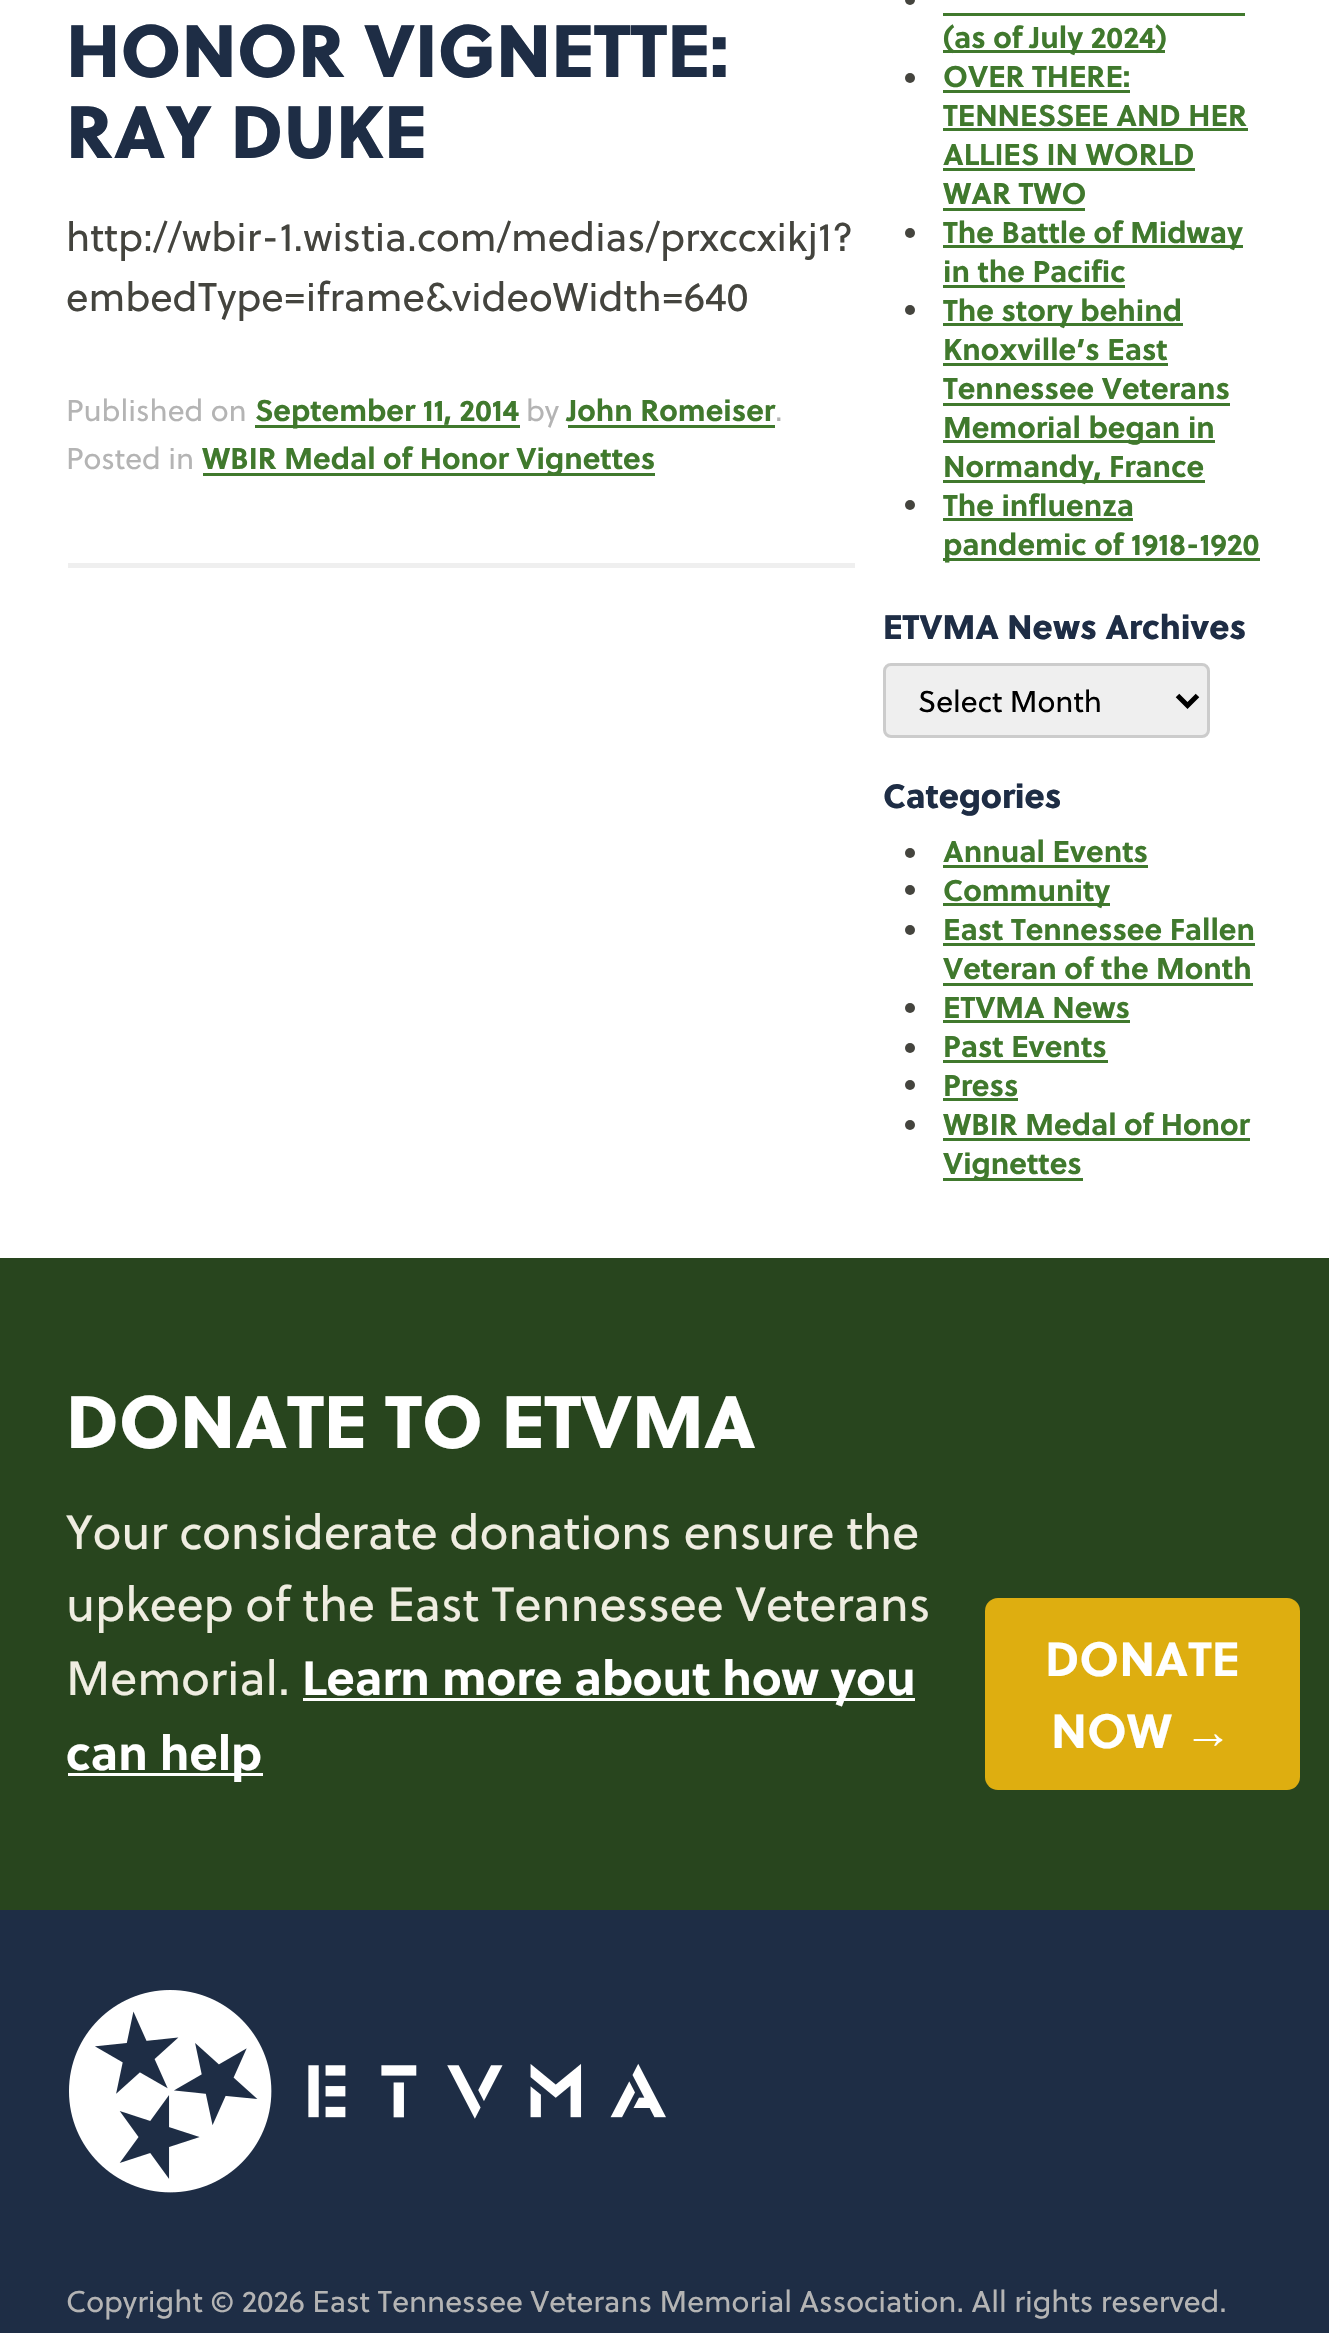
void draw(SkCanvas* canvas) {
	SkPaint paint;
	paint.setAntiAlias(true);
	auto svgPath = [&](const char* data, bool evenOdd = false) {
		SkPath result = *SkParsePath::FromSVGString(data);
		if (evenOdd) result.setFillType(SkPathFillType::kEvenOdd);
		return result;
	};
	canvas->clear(0xffffffff);
	paint.setColor(0xffefefef);
	canvas->drawRect(SkRect::MakeXYWH(68, 563, 787, 5), paint);
	SkFont f1(fontMgr->matchFamilyStyle("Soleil", SkFontStyle(800, SkFontStyle::kNormal_Width, SkFontStyle::kUpright_Slant)), 74);
	f1.setSubpixel(true);
	paint.setColor(0xff1e2d45);
	canvas->drawString("HONOR VIGNETTE:", 66, 77, f1, paint);
	canvas->drawString("RAY DUKE", 66, 158, f1, paint);
	SkFont f2(fontMgr->matchFamilyStyle("Soleil", SkFontStyle::Normal()), 40);
	f2.setSubpixel(true);
	paint.setColor(0xff44443e);
	canvas->drawString("http://wbir-1.wistia.com/medias/prxccxikj1?", 66, 251, f2, paint);
	canvas->drawString("embedType=iframe&videoWidth=640", 66, 311, f2, paint);
	SkFont f3(fontMgr->matchFamilyStyle("Soleil", SkFontStyle::Normal()), 30);
	f3.setSubpixel(true);
	paint.setColor(0xffb4b4b4);
	canvas->drawString("Published on", 66, 421, f3, paint);
	paint.setColor(0xff40792d);
	canvas->drawRect(SkRect::MakeXYWH(255, 425, 265, 3), paint);
	SkFont f4(fontMgr->matchFamilyStyle("Soleil", SkFontStyle::Bold()), 30);
	f4.setSubpixel(true);
	canvas->drawString("September 11, 2014", 255, 421, f4, paint);
	paint.setColor(0xffb4b4b4);
	canvas->drawString("by", 526, 421, f3, paint);
	paint.setColor(0xff40792d);
	canvas->drawString("John Romeiser", 567, 421, f4, paint);
	canvas->drawRect(SkRect::MakeXYWH(568, 425, 207, 3), paint);
	paint.setColor(0xffb4b4b4);
	canvas->drawString(".", 775, 421, f3, paint);
	canvas->drawString("Posted in", 66, 469, f3, paint);
	paint.setColor(0xff40792d);
	canvas->drawRect(SkRect::MakeXYWH(203, 473, 452, 3), paint);
	canvas->drawString("WBIR Medal of Honor Vignettes", 202, 469, f4, paint);
	paint.setColor(0xff44443e);
	canvas->drawCircle(910, 0, 5, paint);
	paint.setColor(0xff40792d);
	canvas->drawRect(SkRect::MakeXYWH(943, 50, 222, 3), paint);
	canvas->drawString("(as of July 2024)", 943, 48, f4, paint);
	canvas->drawRect(SkRect::MakeXYWH(943, 13, 302, 3), paint);
	paint.setColor(0xff44443e);
	canvas->drawCircle(910, 78, 5, paint);
	paint.setColor(0xff40792d);
	canvas->drawString("OVER THERE:", 943, 87, f4, paint);
	canvas->drawRect(SkRect::MakeXYWH(943, 90, 187, 3), paint);
	canvas->drawString("TENNESSEE AND HER", 943, 126, f4, paint);
	canvas->drawRect(SkRect::MakeXYWH(943, 128, 305, 3), paint);
	canvas->drawString("ALLIES IN WORLD", 943, 165, f4, paint);
	canvas->drawRect(SkRect::MakeXYWH(943, 168, 252, 3), paint);
	canvas->drawString("WAR TWO", 943, 204, f4, paint);
	canvas->drawRect(SkRect::MakeXYWH(943, 208, 142, 3), paint);
	paint.setColor(0xff44443e);
	canvas->drawCircle(910, 233, 5, paint);
	paint.setColor(0xff40792d);
	canvas->drawRect(SkRect::MakeXYWH(943, 245, 300, 3), paint);
	canvas->drawString("The Battle of Midway", 943, 243, f4, paint);
	canvas->drawString("in the Pacific", 943, 282, f4, paint);
	canvas->drawRect(SkRect::MakeXYWH(943, 285, 182, 3), paint);
	paint.setColor(0xff44443e);
	canvas->drawCircle(910, 310, 5, paint);
	paint.setColor(0xff40792d);
	canvas->drawRect(SkRect::MakeXYWH(943, 323, 240, 3), paint);
	canvas->drawString("The story behind", 943, 321, f4, paint);
	canvas->drawString("Knoxville’s East", 943, 360, f4, paint);
	canvas->drawRect(SkRect::MakeXYWH(943, 363, 225, 3), paint);
	canvas->drawString("Tennessee Veterans", 943, 399, f4, paint);
	canvas->drawRect(SkRect::MakeXYWH(943, 403, 287, 3), paint);
	canvas->drawRect(SkRect::MakeXYWH(943, 440, 272, 3), paint);
	canvas->drawString("Memorial began in", 943, 438, f4, paint);
	canvas->drawRect(SkRect::MakeXYWH(943, 480, 262, 3), paint);
	canvas->drawString("Normandy, France", 943, 477, f4, paint);
	paint.setColor(0xff44443e);
	canvas->drawCircle(910, 505, 5, paint);
	paint.setColor(0xff40792d);
	canvas->drawString("The influenza", 943, 516, f4, paint);
	canvas->drawRect(SkRect::MakeXYWH(943, 518, 190, 3), paint);
	canvas->drawRect(SkRect::MakeXYWH(943, 558, 317, 3), paint);
	canvas->drawString("pandemic of 1918-1920", 943, 555, f4, paint);
	SkFont f5(fontMgr->matchFamilyStyle("Soleil", SkFontStyle(800, SkFontStyle::kNormal_Width, SkFontStyle::kUpright_Slant)), 33.75);
	f5.setSubpixel(true);
	paint.setColor(0xff1e2d45);
	canvas->drawString("ETVMA News Archives", 883, 639, f5, paint);
	paint.setColor(0xffefefef);
	canvas->drawRoundRect(SkRect::MakeXYWH(884.5, 664.5, 324, 72), 6.5, 6.5, paint);
	paint.setStroke(true);
	paint.setStrokeWidth(3);
	paint.setColor(0xffcccccc);
	canvas->drawRoundRect(SkRect::MakeXYWH(884.5, 664.5, 324, 72), 6.5, 6.5, paint);
	paint.setStrokeWidth(5);
	paint.setColor(0xff000000);
	canvas->drawPath(svgPath("M1177.5 695.5L1187.5 705.5L1197.5 695.5"), paint);
	paint.setStroke(false);
	canvas->drawString("Select Month", 918, 712, f3, paint);
	paint.setColor(0xff1e2d45);
	canvas->drawString("Categories", 883, 808, f5, paint);
	paint.setColor(0xff44443e);
	canvas->drawCircle(910, 853, 5, paint);
	paint.setColor(0xff40792d);
	canvas->drawString("Annual Events", 943, 862, f4, paint);
	canvas->drawRect(SkRect::MakeXYWH(943, 865, 205, 3), paint);
	paint.setColor(0xff44443e);
	canvas->drawCircle(910, 890, 5, paint);
	paint.setColor(0xff40792d);
	canvas->drawRect(SkRect::MakeXYWH(943, 903, 167, 3), paint);
	canvas->drawString("Community", 943, 901, f4, paint);
	paint.setColor(0xff44443e);
	canvas->drawCircle(910, 930, 5, paint);
	paint.setColor(0xff40792d);
	canvas->drawString("East Tennessee Fallen", 943, 940, f4, paint);
	canvas->drawRect(SkRect::MakeXYWH(943, 943, 312, 3), paint);
	canvas->drawString("Veteran of the Month", 943, 979, f4, paint);
	canvas->drawRect(SkRect::MakeXYWH(943, 983, 310, 3), paint);
	paint.setColor(0xff44443e);
	canvas->drawCircle(910, 1008, 5, paint);
	paint.setColor(0xff40792d);
	canvas->drawString("ETVMA News", 943, 1018, f4, paint);
	canvas->drawRect(SkRect::MakeXYWH(943, 1020, 187, 3), paint);
	paint.setColor(0xff44443e);
	canvas->drawCircle(910, 1048, 5, paint);
	paint.setColor(0xff40792d);
	canvas->drawString("Past Events", 943, 1057, f4, paint);
	canvas->drawRect(SkRect::MakeXYWH(943, 1060, 165, 3), paint);
	paint.setColor(0xff44443e);
	canvas->drawCircle(910, 1085, 5, paint);
	paint.setColor(0xff40792d);
	canvas->drawString("Press", 943, 1096, f4, paint);
	canvas->drawRect(SkRect::MakeXYWH(943, 1098, 75, 3), paint);
	paint.setColor(0xff44443e);
	canvas->drawCircle(910, 1125, 5, paint);
	paint.setColor(0xff40792d);
	canvas->drawString("WBIR Medal of Honor", 943, 1135, f4, paint);
	canvas->drawRect(SkRect::MakeXYWH(943, 1138, 307, 3), paint);
	canvas->drawRect(SkRect::MakeXYWH(943, 1178, 140, 3), paint);
	canvas->drawString("Vignettes", 943, 1174, f4, paint);
	paint.setColor(0xff28451e);
	canvas->drawRect(SkRect::MakeXYWH(0, 1258, 1329, 652), paint);
	paint.setColor(0xffffffff);
	canvas->drawString("DONATE TO ETVMA", 66, 1448, f1, paint);
	SkFont f6(fontMgr->matchFamilyStyle("Soleil", SkFontStyle::Normal()), 48);
	f6.setSubpixel(true);
	paint.setColor(0xffefede1);
	canvas->drawString("Your considerate donations ensure the", 66, 1549, f6, paint);
	canvas->drawString("upkeep of the East Tennessee Veterans", 66, 1621, f6, paint);
	canvas->drawString("Memorial.", 66, 1695, f6, paint);
	paint.setColor(0xffffffff);
	canvas->drawRect(SkRect::MakeXYWH(303, 1698, 612, 3), paint);
	SkFont f7(fontMgr->matchFamilyStyle("Soleil", SkFontStyle::Bold()), 48);
	f7.setSubpixel(true);
	canvas->drawString("Learn more about how you", 302, 1695, f7, paint);
	canvas->drawRect(SkRect::MakeXYWH(68, 1773, 195, 3), paint);
	canvas->drawString("can help", 66, 1770, f7, paint);
	paint.setColor(0xffdeae10);
	canvas->drawRoundRect(SkRect::MakeXYWH(985, 1598, 315, 192), 13, 13, paint);
	paint.setColor(0xffffffff);
	canvas->drawString("DONATE", 1045, 1676, f7, paint);
	canvas->drawString("NOW", 1051, 1748, f7, paint);
	SkFont f8(fontMgr->matchFamilyStyle("Liberation Sans", SkFontStyle::Bold()), 48);
	f8.setSubpixel(true);
	canvas->drawString("→", 1184, 1748, f8, paint);
	paint.setColor(0xff1e2d45);
	canvas->drawRect(SkRect::MakeXYWH(0, 1910, 1329, 423), paint);
	canvas->drawImageRect(SkImages::DeferredFromEncodedData(SkData::MakeFromFileName("img1.png")), SkRect::MakeXYWH(69, 1990, 597, 203), SkSamplingOptions());
	paint.setColor(0xffb4b4b4);
	canvas->drawString("Copyright © 2026 East Tennessee Veterans Memorial Association. All rights reserved.", 66, 2312, f3, paint);
}
